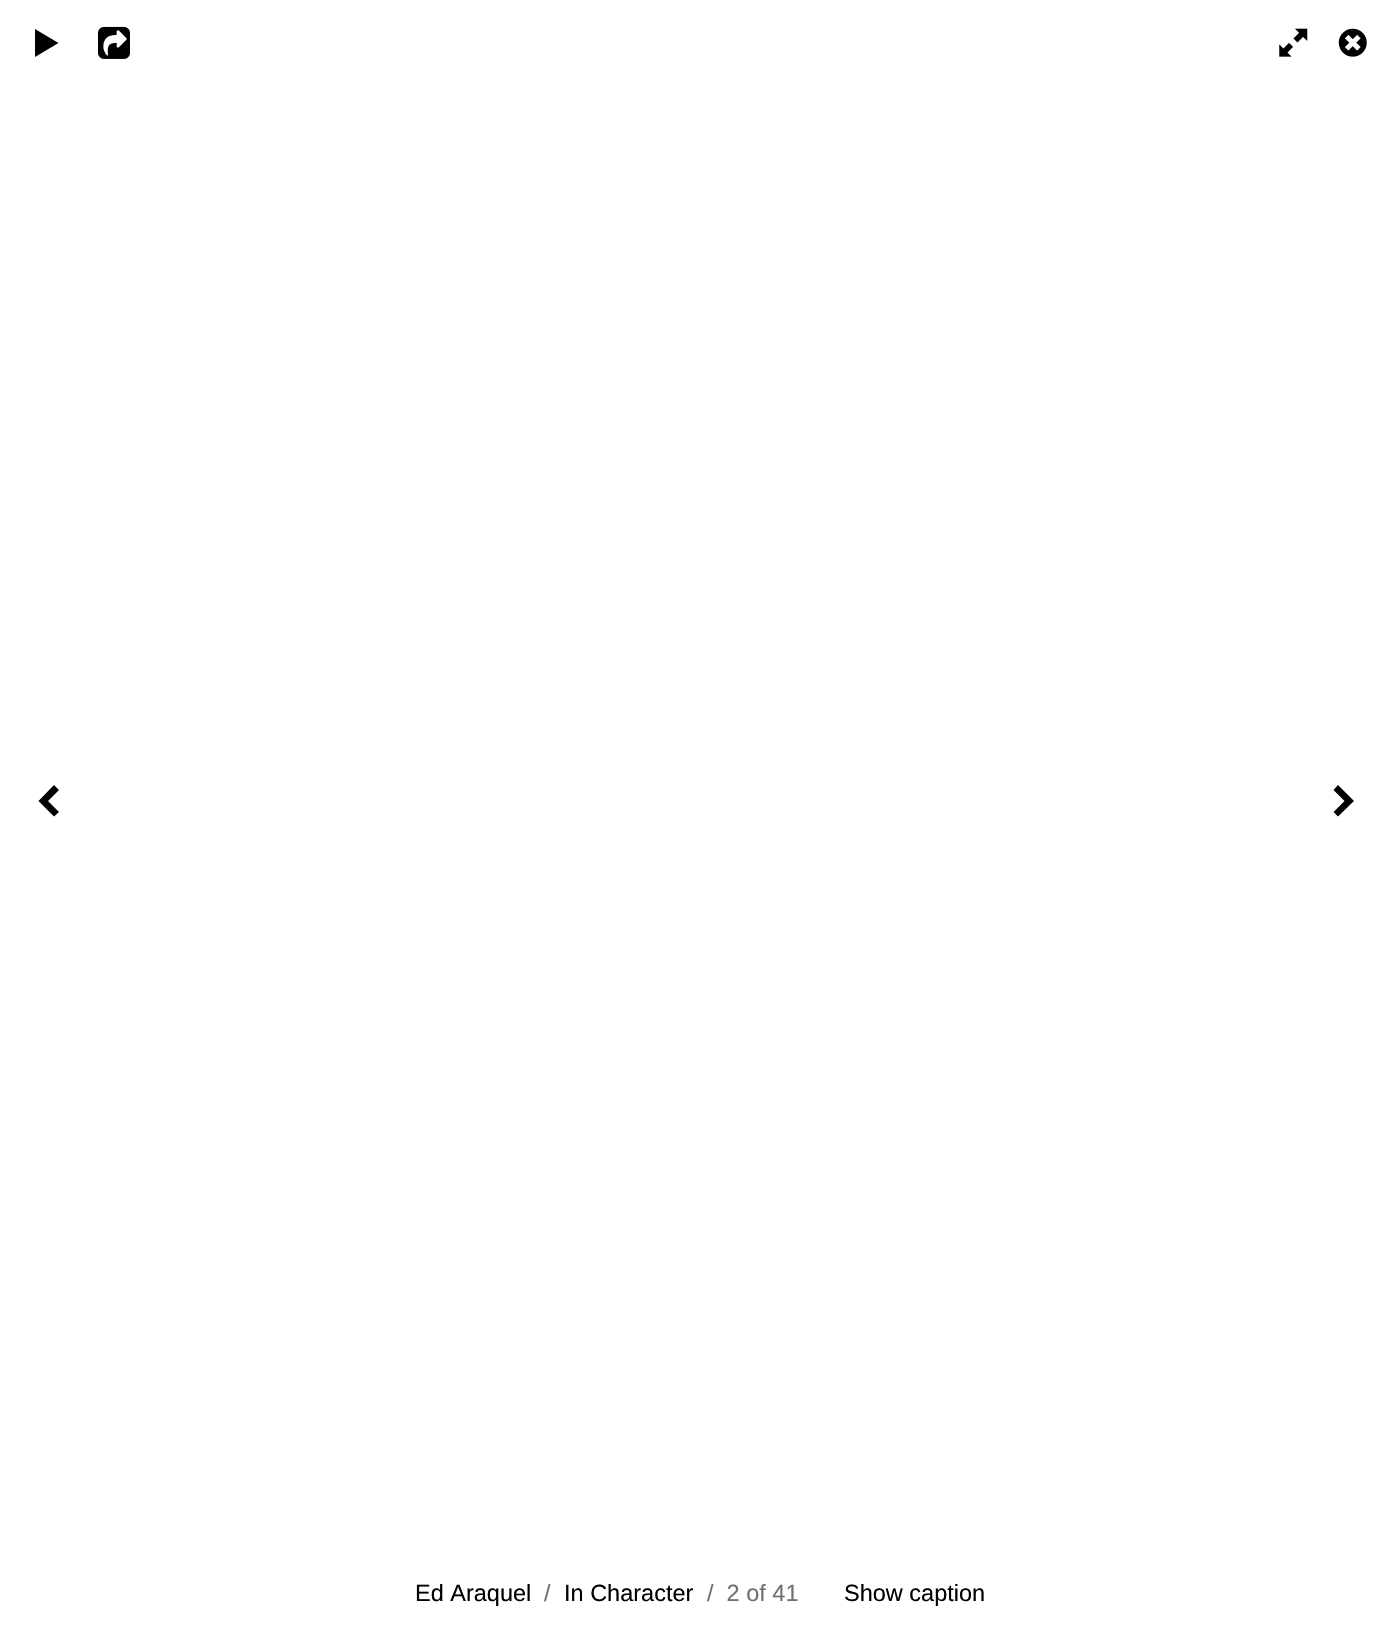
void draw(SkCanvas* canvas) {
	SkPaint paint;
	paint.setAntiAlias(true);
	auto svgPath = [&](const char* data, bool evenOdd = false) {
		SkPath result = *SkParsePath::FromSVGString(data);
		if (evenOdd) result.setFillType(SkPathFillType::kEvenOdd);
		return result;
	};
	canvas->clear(0xffffffff);
	paint.setColor(0xff000000);
	canvas->drawPath(svgPath("M35 57V29L58.5 43Z"), paint);
	canvas->drawImageRect(SkImages::DeferredFromEncodedData(SkData::MakeFromFileName("img1.png")), SkRect::MakeXYWH(98, 26, 32, 33), SkSamplingOptions());
	canvas->drawImageRect(SkImages::DeferredFromEncodedData(SkData::MakeFromFileName("img2.png")), SkRect::MakeXYWH(1279, 28, 29, 29), SkSamplingOptions());
	canvas->drawImageRect(SkImages::DeferredFromEncodedData(SkData::MakeFromFileName("img3.png")), SkRect::MakeXYWH(1338, 28, 29, 29), SkSamplingOptions());
	canvas->drawPath(svgPath("M38.5 801L54 785L59 790L48 801L59 812L54 816.5Z"), paint);
	canvas->drawPath(svgPath("M1333.5 812L1344.5 801L1333.5 790L1338 785L1354 801L1338 816.5Z"), paint);
	SkFont f1(fontMgr->matchFamilyStyle("Liberation Sans", SkFontStyle::Normal()), 23.5);
	f1.setSubpixel(true);
	canvas->drawString("Ed Araquel", 415, 1601, f1, paint);
	paint.setColor(0xff707070);
	canvas->drawString("/", 544, 1601, f1, paint);
	paint.setColor(0xff000000);
	canvas->drawString("In Character", 564, 1601, f1, paint);
	paint.setColor(0xff707070);
	canvas->drawString("/  2 of 41", 707, 1601, f1, paint);
	paint.setColor(0xff000000);
	canvas->drawString("Show caption", 844, 1601, f1, paint);
}
